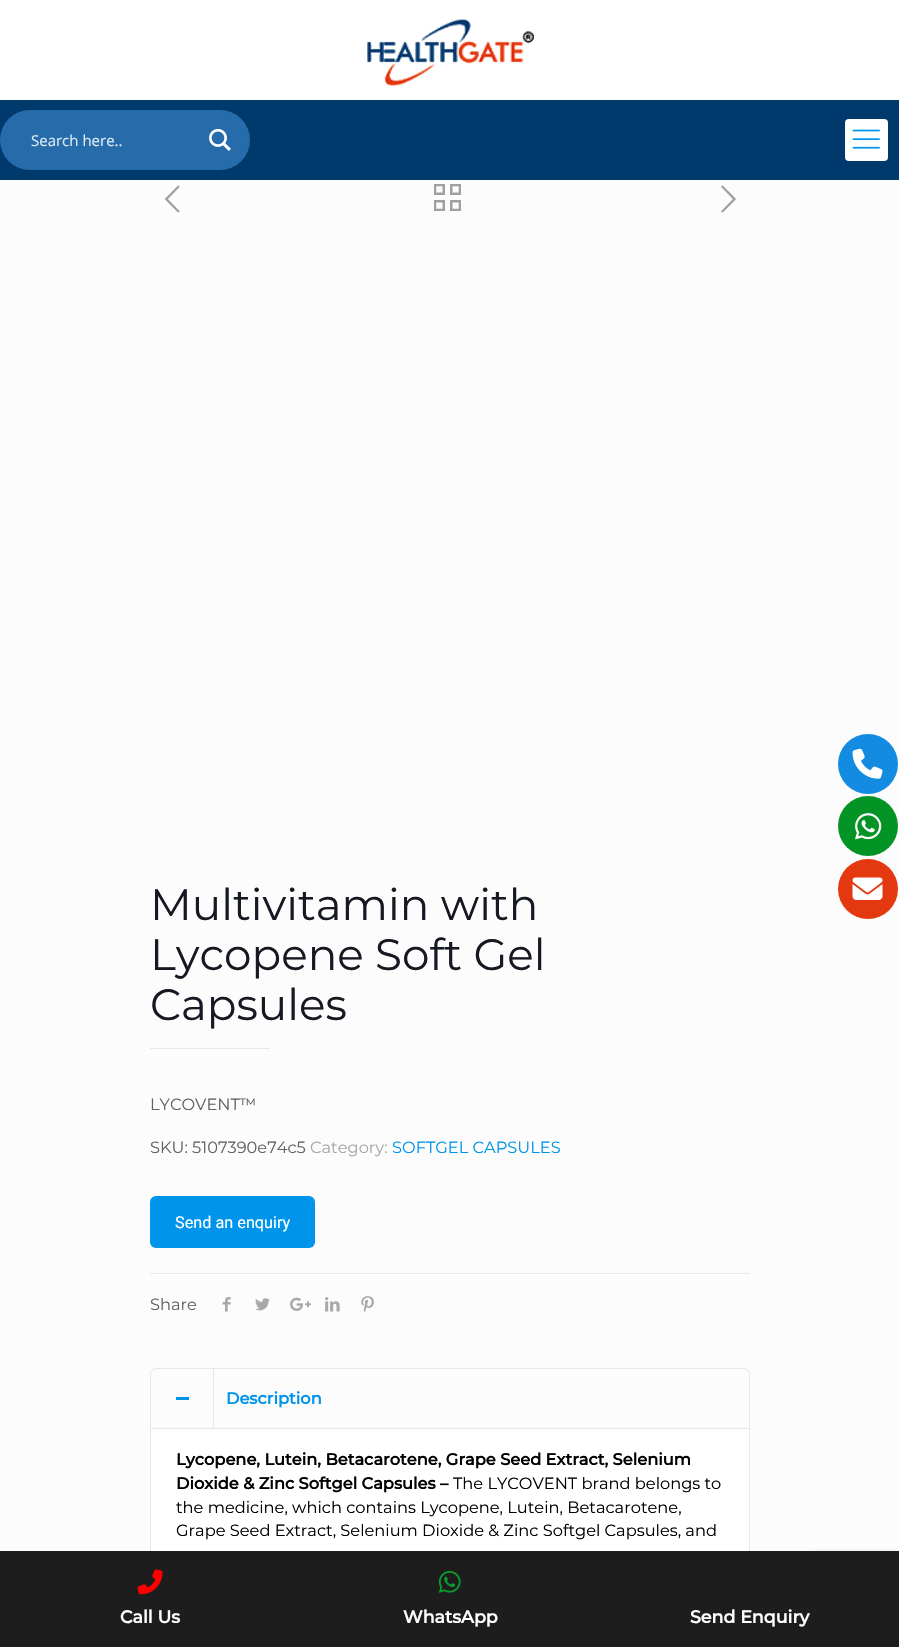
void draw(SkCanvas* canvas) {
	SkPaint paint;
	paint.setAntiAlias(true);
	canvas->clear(0xfffcfcfc);
	paint.setColor(0xffffffff);
	canvas->drawRect(SkRect::MakeXYWH(0, 0, 899, 100), paint);
	canvas->drawImageRect(SkImages::DeferredFromEncodedData(SkData::MakeFromFileName("img1.png")), SkRect::MakeXYWH(367, 19, 167, 67), SkSamplingOptions());
	paint.setColor(0xff003a6d);
	canvas->drawRect(SkRect::MakeXYWH(0, 100, 899, 80), paint);
	paint.setColor(0xff266cab);
	canvas->drawRoundRect(SkRect::MakeXYWH(0, 110, 250, 60), 30, 30, paint);
	SkFont f1(fontMgr->matchFamilyStyle("Open Sans", SkFontStyle::Normal()), 15);
	f1.setSubpixel(true);
	paint.setColor(0xffdee9f2);
	canvas->drawString("Search here..", 31, 146, f1, paint);
	canvas->drawImageRect(SkImages::DeferredFromEncodedData(SkData::MakeFromFileName("img2.png")), SkRect::MakeXYWH(209, 129, 22, 22), SkSamplingOptions());
	paint.setColor(0xffffffff);
	canvas->drawRoundRect(SkRect::MakeXYWH(845, 119, 43, 42), 4, 4, paint);
	canvas->drawImageRect(SkImages::DeferredFromEncodedData(SkData::MakeFromFileName("img3.png")), SkRect::MakeXYWH(852, 129, 28, 20), SkSamplingOptions());
	canvas->drawImageRect(SkImages::DeferredFromEncodedData(SkData::MakeFromFileName("img4.png")), SkRect::MakeXYWH(165, 185, 15, 28), SkSamplingOptions());
	canvas->drawImageRect(SkImages::DeferredFromEncodedData(SkData::MakeFromFileName("img5.png")), SkRect::MakeXYWH(434, 184, 27, 27), SkSamplingOptions());
	canvas->drawImageRect(SkImages::DeferredFromEncodedData(SkData::MakeFromFileName("img6.png")), SkRect::MakeXYWH(721, 185, 15, 28), SkSamplingOptions());
	SkFont f2(fontMgr->matchFamilyStyle("Montserrat", SkFontStyle::Normal()), 43.75);
	f2.setSubpixel(true);
	paint.setColor(0xff161922);
	canvas->drawString("Multivitamin with", 150, 920, f2, paint);
	canvas->drawString("Lycopene Soft Gel", 150, 970, f2, paint);
	canvas->drawString("Capsules", 150, 1020, f2, paint);
	paint.setColor(0xffe8e8e8);
	canvas->drawRect(SkRect::MakeXYWH(150, 1048, 120, 1), paint);
	SkFont f3(fontMgr->matchFamilyStyle("Montserrat", SkFontStyle::Normal()), 16.25);
	f3.setSubpixel(true);
	paint.setColor(0xff626262);
	canvas->drawString("LYCOVENT™", 150, 1110, f3, paint);
	canvas->drawString("SKU: 5107390e74c5", 150, 1153, f3, paint);
	paint.setColor(0xffa8a8a8);
	canvas->drawString("Category:", 310, 1153, f3, paint);
	paint.setColor(0xff0095eb);
	canvas->drawString("SOFTGEL CAPSULES", 392, 1153, f3, paint);
	canvas->drawRoundRect(SkRect::MakeXYWH(150, 1196, 165, 52), 6, 6, paint);
	SkFont f4(fontMgr->matchFamilyStyle("Roboto", SkFontStyle::Normal()), 16.25);
	f4.setSubpixel(true);
	paint.setColor(0xffffffff);
	canvas->drawString("Send an enquiry", 175, 1228, f4, paint);
	paint.setColor(0xffe8e8e8);
	canvas->drawRect(SkRect::MakeXYWH(150, 1273, 600, 1), paint);
	paint.setColor(0xff626262);
	canvas->drawString("Share", 150, 1310, f3, paint);
	canvas->drawImageRect(SkImages::DeferredFromEncodedData(SkData::MakeFromFileName("img7.png")), SkRect::MakeXYWH(222, 1297, 9, 15), SkSamplingOptions());
	canvas->drawImageRect(SkImages::DeferredFromEncodedData(SkData::MakeFromFileName("img8.png")), SkRect::MakeXYWH(255, 1298, 15, 13), SkSamplingOptions());
	canvas->drawImageRect(SkImages::DeferredFromEncodedData(SkData::MakeFromFileName("img9.png")), SkRect::MakeXYWH(290, 1297, 21, 14), SkSamplingOptions());
	canvas->drawImageRect(SkImages::DeferredFromEncodedData(SkData::MakeFromFileName("img10.png")), SkRect::MakeXYWH(325, 1297, 15, 15), SkSamplingOptions());
	canvas->drawImageRect(SkImages::DeferredFromEncodedData(SkData::MakeFromFileName("img11.png")), SkRect::MakeXYWH(361, 1296, 13, 17), SkSamplingOptions());
	paint.setStroke(true);
	paint.setStrokeWidth(1);
	paint.setColor(0xffe8e8e8);
	canvas->drawRoundRect(SkRect::MakeXYWH(150.5, 1368.5, 599, 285), 5.5, 5.5, paint);
	paint.setStroke(false);
	canvas->drawRect(SkRect::MakeXYWH(151, 1428, 598, 1), paint);
	paint.setColor(0xff0095eb);
	canvas->drawRect(SkRect::MakeXYWH(176, 1397, 13, 3), paint);
	paint.setColor(0xffe8e8e8);
	canvas->drawRect(SkRect::MakeXYWH(213, 1369, 1, 59), paint);
	SkFont f5(fontMgr->matchFamilyStyle("Montserrat", SkFontStyle::Bold()), 16.25);
	f5.setSubpixel(true);
	paint.setColor(0xff0095eb);
	canvas->drawString("Description", 226, 1404, f5, paint);
	paint.setColor(0xffffffff);
	canvas->drawRect(SkRect::MakeXYWH(151, 1429, 598, 122), paint);
	paint.setColor(0xff000000);
	canvas->drawString("Lycopene, Lutein, Betacarotene, Grape Seed Extract, Selenium", 176, 1465, f5, paint);
	canvas->drawString("Dioxide & Zinc Softgel Capsules –", 176, 1489, f5, paint);
	canvas->drawString("The LYCOVENT brand belongs to", 453, 1489, f3, paint);
	canvas->drawString("the medicine, which contains Lycopene, Lutein, Betacarotene,", 176, 1513, f3, paint);
	canvas->drawString("Grape Seed Extract, Selenium Dioxide & Zinc Softgel Capsules, and", 176, 1536, f3, paint);
	paint.setColor(0xff128be0);
	canvas->drawCircle(868, 764, 30, paint);
	canvas->drawImageRect(SkImages::DeferredFromEncodedData(SkData::MakeFromFileName("img12.png")), SkRect::MakeXYWH(852, 748, 31, 31), SkSamplingOptions());
	paint.setColor(0xff049325);
	canvas->drawCircle(868, 826, 30, paint);
	canvas->drawImageRect(SkImages::DeferredFromEncodedData(SkData::MakeFromFileName("img13.png")), SkRect::MakeXYWH(855, 813, 27, 27), SkSamplingOptions());
	paint.setColor(0xffe43810);
	canvas->drawCircle(868, 889, 30, paint);
	canvas->drawImageRect(SkImages::DeferredFromEncodedData(SkData::MakeFromFileName("img14.png")), SkRect::MakeXYWH(852, 877, 31, 23), SkSamplingOptions());
	paint.setColor(0xff808080);
	paint.setMaskFilter(SkMaskFilter::MakeBlur(kNormal_SkBlurStyle, 3));
	canvas->drawRoundRect(SkRect::MakeXYWH(813, 1555, 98, 75), 2.5, 2.5, paint);
	paint.setMaskFilter(nullptr);
	paint.setColor(0xff1d1d1d);
	canvas->drawRect(SkRect::MakeXYWH(0, 1551, 899, 96), paint);
	canvas->drawImageRect(SkImages::DeferredFromEncodedData(SkData::MakeFromFileName("img15.png")), SkRect::MakeXYWH(137, 1569, 26, 26), SkSamplingOptions());
	SkFont f6(fontMgr->matchFamilyStyle("Montserrat", SkFontStyle::Bold()), 17.5);
	f6.setSubpixel(true);
	paint.setColor(0xffffffff);
	canvas->drawString("Call Us", 120, 1623, f6, paint);
	canvas->drawImageRect(SkImages::DeferredFromEncodedData(SkData::MakeFromFileName("img16.png")), SkRect::MakeXYWH(438, 1570, 23, 23), SkSamplingOptions());
	canvas->drawString("WhatsApp", 403, 1623, f6, paint);
	canvas->drawString("Send Enquiry", 690, 1623, f6, paint);
}
